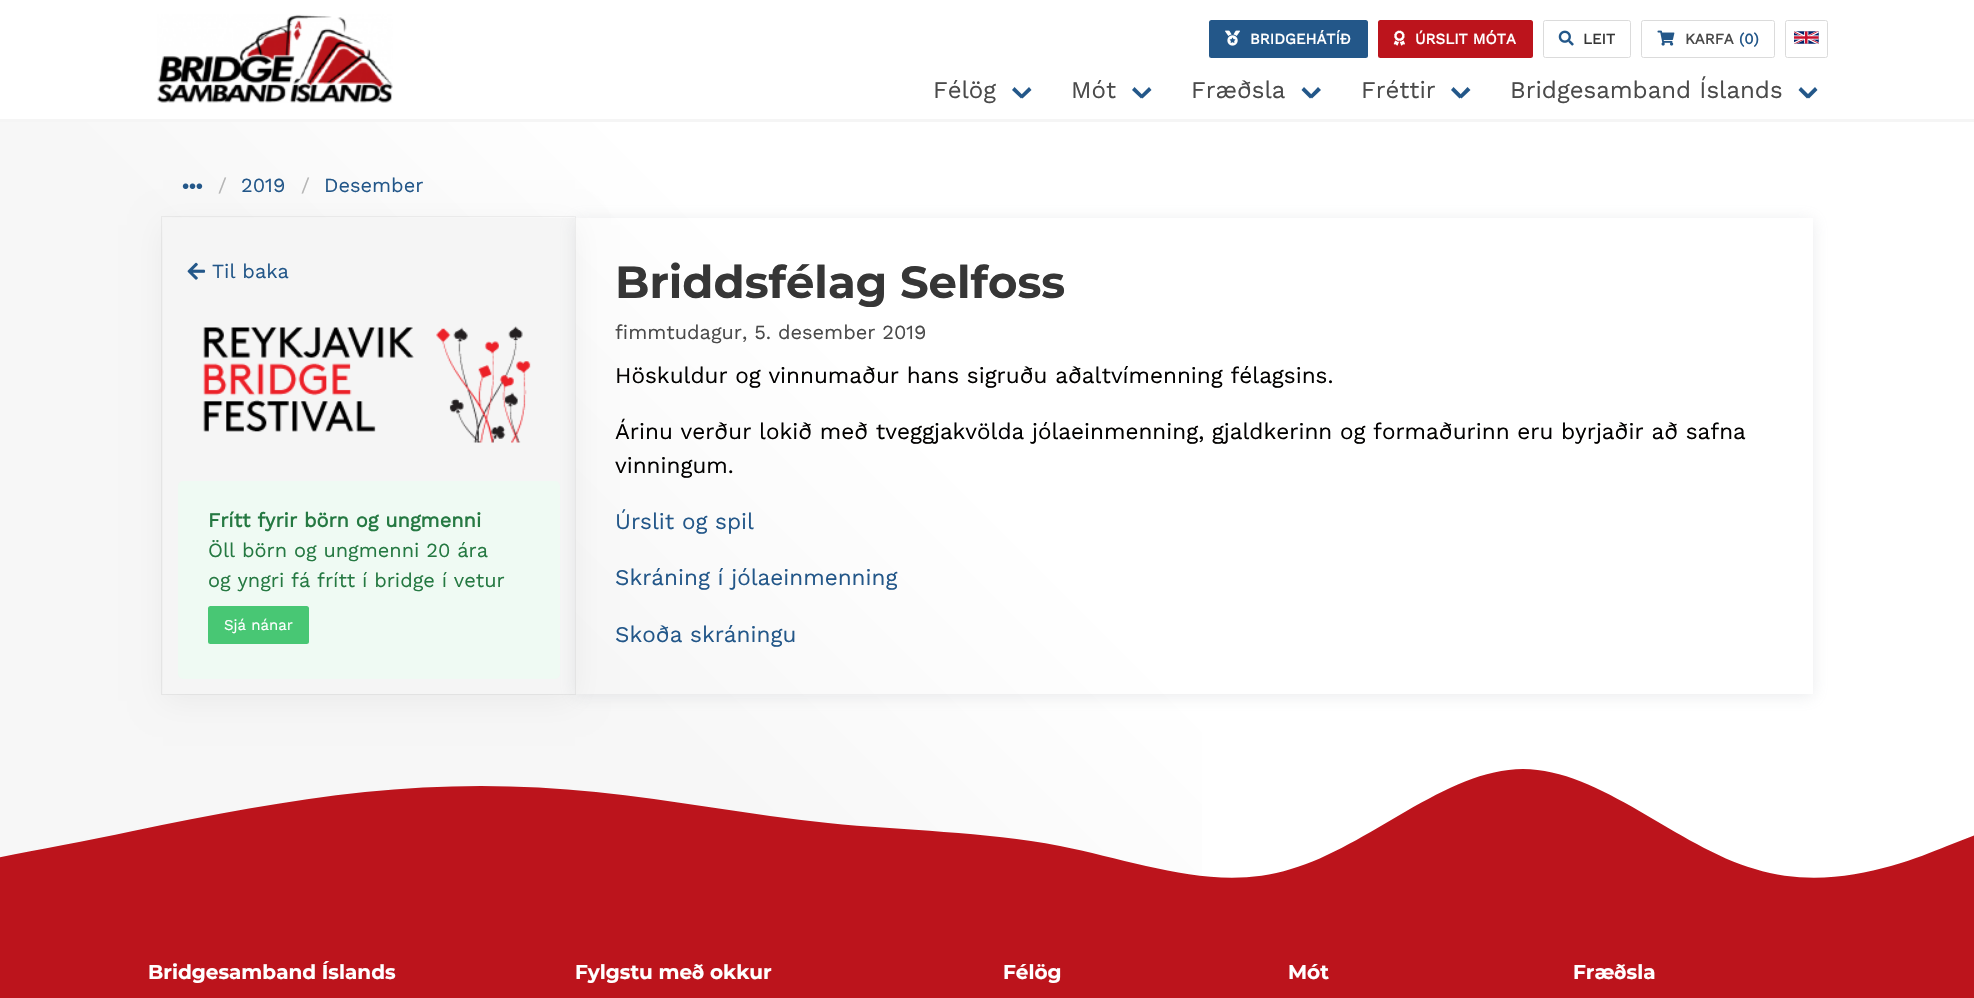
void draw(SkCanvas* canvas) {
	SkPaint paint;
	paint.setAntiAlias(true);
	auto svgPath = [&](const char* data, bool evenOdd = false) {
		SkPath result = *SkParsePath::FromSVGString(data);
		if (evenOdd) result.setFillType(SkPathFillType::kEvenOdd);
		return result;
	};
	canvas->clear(0xffffffff);
	paint.setColor(0xfff5f5f5);
	canvas->drawRect(SkRect::MakeXYWH(0, 119, 1974, 3), paint);
	canvas->drawImageRect(SkImages::DeferredFromEncodedData(SkData::MakeFromFileName("img1.png")), SkRect::MakeXYWH(157, 14, 236, 89), SkSamplingOptions());
	paint.setColor(0xff235789);
	canvas->drawRoundRect(SkRect::MakeXYWH(1209, 20, 159, 38), 2.5, 2.5, paint);
	canvas->drawImageRect(SkImages::DeferredFromEncodedData(SkData::MakeFromFileName("img2.png")), SkRect::MakeXYWH(1225, 30, 15, 16), SkSamplingOptions());
	SkFont f1(fontMgr->matchFamilyStyle("Work Sans", SkFontStyle::Bold()), 15);
	f1.setSubpixel(true);
	paint.setColor(0xffffffff);
	canvas->drawString("BRIDGEHÁTÍÐ", 1250, 44, f1, paint);
	paint.setColor(0xffbc141c);
	canvas->drawRoundRect(SkRect::MakeXYWH(1378, 20, 155, 38), 2.5, 2.5, paint);
	canvas->drawImageRect(SkImages::DeferredFromEncodedData(SkData::MakeFromFileName("img3.png")), SkRect::MakeXYWH(1393, 30, 12, 16), SkSamplingOptions());
	paint.setColor(0xffffffff);
	canvas->drawString("ÚRSLIT MÓTA", 1415, 44, f1, paint);
	paint.setStroke(true);
	paint.setStrokeWidth(1);
	paint.setColor(0xffdbdbdb);
	canvas->drawRoundRect(SkRect::MakeXYWH(1543.5, 20.5, 87, 37), 2, 2, paint);
	canvas->drawImageRect(SkImages::DeferredFromEncodedData(SkData::MakeFromFileName("img4.png")), SkRect::MakeXYWH(1558, 30, 16, 16), SkSamplingOptions());
	paint.setStroke(false);
	paint.setColor(0xff363636);
	canvas->drawString("LEIT", 1583, 44, f1, paint);
	paint.setStroke(true);
	paint.setColor(0xffdbdbdb);
	canvas->drawRoundRect(SkRect::MakeXYWH(1641.5, 20.5, 133, 37), 2, 2, paint);
	canvas->drawImageRect(SkImages::DeferredFromEncodedData(SkData::MakeFromFileName("img5.png")), SkRect::MakeXYWH(1657, 30, 18, 16), SkSamplingOptions());
	paint.setStroke(false);
	paint.setColor(0xff4a4a4a);
	canvas->drawString("KARFA", 1685, 44, f1, paint);
	paint.setColor(0xff235789);
	canvas->drawString("(0)", 1739, 44, f1, paint);
	paint.setStroke(true);
	paint.setColor(0xffdbdbdb);
	canvas->drawRoundRect(SkRect::MakeXYWH(1785.5, 20.5, 42, 37), 2, 2, paint);
	canvas->drawImageRect(SkImages::DeferredFromEncodedData(SkData::MakeFromFileName("img6.png")), SkRect::MakeXYWH(1794, 31, 25, 13), SkSamplingOptions());
	SkFont f2(fontMgr->matchFamilyStyle("Work Sans", SkFontStyle::Normal()), 24);
	f2.setSubpixel(true);
	paint.setStroke(false);
	paint.setColor(0xff4a4a4a);
	canvas->drawString("Félög", 933, 98, f2, paint);
	paint.setColor(0xff235789);
	canvas->drawPath(svgPath("M1020 96L1029 87L1031.5 90L1022.5 98.5Z"), paint);
	canvas->drawPath(svgPath("M1012 90L1014.5 87L1023.5 96L1021 98.5Z"), paint);
	paint.setColor(0xff4a4a4a);
	canvas->drawString("Mót", 1071, 98, f2, paint);
	paint.setColor(0xff235789);
	canvas->drawPath(svgPath("M1140 96L1149 87L1151.5 90L1142.5 98.5Z"), paint);
	canvas->drawPath(svgPath("M1132 90L1134.5 87L1143.5 96L1141 98.5Z"), paint);
	paint.setColor(0xff4a4a4a);
	canvas->drawString("Fræðsla", 1191, 98, f2, paint);
	paint.setColor(0xff235789);
	canvas->drawPath(svgPath("M1309.5 96L1318 87L1321 90L1312 98.5Z"), paint);
	canvas->drawPath(svgPath("M1301.5 90L1304 87L1313 96L1310 98.5Z"), paint);
	paint.setColor(0xff4a4a4a);
	canvas->drawString("Fréttir", 1361, 98, f2, paint);
	paint.setColor(0xff235789);
	canvas->drawPath(svgPath("M1459 96L1467.5 87L1470.5 90L1461.5 98.5Z"), paint);
	canvas->drawPath(svgPath("M1451 90L1453.5 87L1462.5 96L1459.5 98.5Z"), paint);
	paint.setColor(0xff4a4a4a);
	canvas->drawString("Bridgesamband Íslands", 1510, 98, f2, paint);
	paint.setColor(0xff235789);
	canvas->drawPath(svgPath("M1806 96L1815 87L1817.5 90L1809 98.5Z"), paint);
	canvas->drawPath(svgPath("M1798.5 90L1801 87L1810 96L1807 98.5Z"), paint);
	{
		const SkColor colors[] = {0xfff7f7f7, 0xffffffff};
		const float stops[] = {0.5, 0.65};
		const SkPoint ends[] = {{24, 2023}, {1951, 97}};
		paint.setShader(SkGradientShader::MakeLinear(ends, colors, stops, 2, SkTileMode::kClamp));
		paint.setAlpha(255);
	}
	canvas->drawRect(SkRect::MakeXYWH(0, 122, 1202, 756), paint);
	paint.setStroke(true);
	paint.setShader(nullptr);
	paint.setColor(0x0d000000);
	canvas->drawRect(SkRect::MakeXYWH(161.5, 216.5, 414, 478), paint);
	paint.setStroke(false);
	paint.setMaskFilter(SkMaskFilter::MakeBlur(kNormal_SkBlurStyle, 15));
	canvas->drawRect(SkRect::MakeXYWH(163, 225, 412, 476), paint);
	paint.setMaskFilter(nullptr);
	canvas->drawImageRect(SkImages::DeferredFromEncodedData(SkData::MakeFromFileName("img7.png")), SkRect::MakeXYWH(182, 183, 21, 6), SkSamplingOptions());
	SkFont f3(fontMgr->matchFamilyStyle("Work Sans", SkFontStyle::Normal()), 20);
	f3.setSubpixel(true);
	paint.setColor(0xffb5b5b5);
	canvas->drawString("/", 218, 192, f3, paint);
	paint.setColor(0xff235789);
	canvas->drawString("2019", 241, 192, f3, paint);
	paint.setColor(0xffb5b5b5);
	canvas->drawString("/", 301, 192, f3, paint);
	paint.setColor(0xff235789);
	canvas->drawString("Desember", 324, 192, f3, paint);
	paint.setColor(0xfff5f5f5);
	canvas->drawRect(SkRect::MakeXYWH(163, 218, 412, 476), paint);
	canvas->drawImageRect(SkImages::DeferredFromEncodedData(SkData::MakeFromFileName("img8.png")), SkRect::MakeXYWH(187, 262, 19, 18), SkSamplingOptions());
	paint.setColor(0xff235789);
	canvas->drawString("Til baka", 212, 278, f3, paint);
	canvas->drawImageRect(SkImages::DeferredFromEncodedData(SkData::MakeFromFileName("img9.png")), SkRect::MakeXYWH(203, 326, 328, 117), SkSamplingOptions());
	canvas->save();
	canvas->clipPath(svgPath("M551 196H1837V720H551ZM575 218H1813V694H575Z", true), true);
	paint.setColor(0x33959da5);
	paint.setMaskFilter(SkMaskFilter::MakeBlur(kNormal_SkBlurStyle, 7.5));
	canvas->drawRect(SkRect::MakeXYWH(575, 220, 1238, 476), paint);
	paint.setMaskFilter(nullptr);
	canvas->restore();
	paint.setColor(0xffeffaf3);
	canvas->drawRoundRect(SkRect::MakeXYWH(178, 481, 382, 198), 5, 5, paint);
	SkFont f4(fontMgr->matchFamilyStyle("Work Sans", SkFontStyle::Bold()), 20);
	f4.setSubpixel(true);
	paint.setColor(0xff257942);
	canvas->drawString("Frítt fyrir börn og ungmenni", 208, 527, f4, paint);
	canvas->drawString("Öll börn og ungmenni 20 ára", 208, 557, f3, paint);
	canvas->drawString("og yngri fá frítt í bridge í vetur", 208, 587, f3, paint);
	paint.setColor(0xff48c774);
	canvas->drawRoundRect(SkRect::MakeXYWH(208, 606, 101, 38), 2.5, 2.5, paint);
	SkFont f5(fontMgr->matchFamilyStyle("Work Sans", SkFontStyle::Normal()), 15);
	f5.setSubpixel(true);
	paint.setColor(0xffffffff);
	canvas->drawString("Sjá nánar", 224, 630, f5, paint);
	SkFont f6(fontMgr->matchFamilyStyle("Montserrat", SkFontStyle(100, SkFontStyle::kNormal_Width, SkFontStyle::kUpright_Slant)), 45);
	f6.setSubpixel(true);
	paint.setColor(0xff363636);
	canvas->drawString("Briddsfélag Selfoss", 615, 298, f6, paint);
	paint.setColor(0xff4a4a4a);
	canvas->drawString("fimmtudagur, 5. desember 2019", 615, 339, f3, paint);
	SkFont f7(fontMgr->matchFamilyStyle("Work Sans", SkFontStyle::Normal()), 22.5);
	f7.setSubpixel(true);
	paint.setColor(0xff020100);
	canvas->drawString("Höskuldur og vinnumaður hans sigruðu aðaltvímenning félagsins.", 615, 383, f7, paint);
	canvas->drawString("Árinu verður lokið með tveggjakvölda jólaeinmenning, gjaldkerinn og formaðurinn eru byrjaðir að safna", 615, 439, f7, paint);
	canvas->drawString("vinningum.", 615, 473, f7, paint);
	paint.setColor(0xff235789);
	canvas->drawString("Úrslit og spil", 615, 529, f7, paint);
	canvas->drawString("Skráning í jólaeinmenning", 615, 585, f7, paint);
	canvas->drawString("Skoða skráningu", 615, 642, f7, paint);
	paint.setColor(0xffbc141c);
	canvas->drawPath(svgPath("M-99 877L-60 869C-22 861 56 847 133 831C210 815 288 800 365 792C442 784 520 784 596 792C673 800 751 815 828 823C905 831 983 831 1060 846C1137 861 1215 893 1291 869C1368 847 1446 769 1523 769C1600 769 1678 847 1755 869C1832 893 1910 861 1947 846L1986 831V970H-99Z"), paint);
	canvas->drawRect(SkRect::MakeXYWH(0, 970, 1974, 28), paint);
	SkFont f8(fontMgr->matchFamilyStyle("Montserrat", SkFontStyle(100, SkFontStyle::kNormal_Width, SkFontStyle::kUpright_Slant)), 20);
	f8.setSubpixel(true);
	paint.setColor(0xffffffff);
	canvas->drawString("Bridgesamband Íslands", 148, 979, f8, paint);
	canvas->drawString("Fylgstu með okkur", 575, 979, f8, paint);
	canvas->drawString("Félög", 1003, 979, f8, paint);
	canvas->drawString("Mót", 1288, 979, f8, paint);
	canvas->drawString("Fræðsla", 1573, 979, f8, paint);
}
